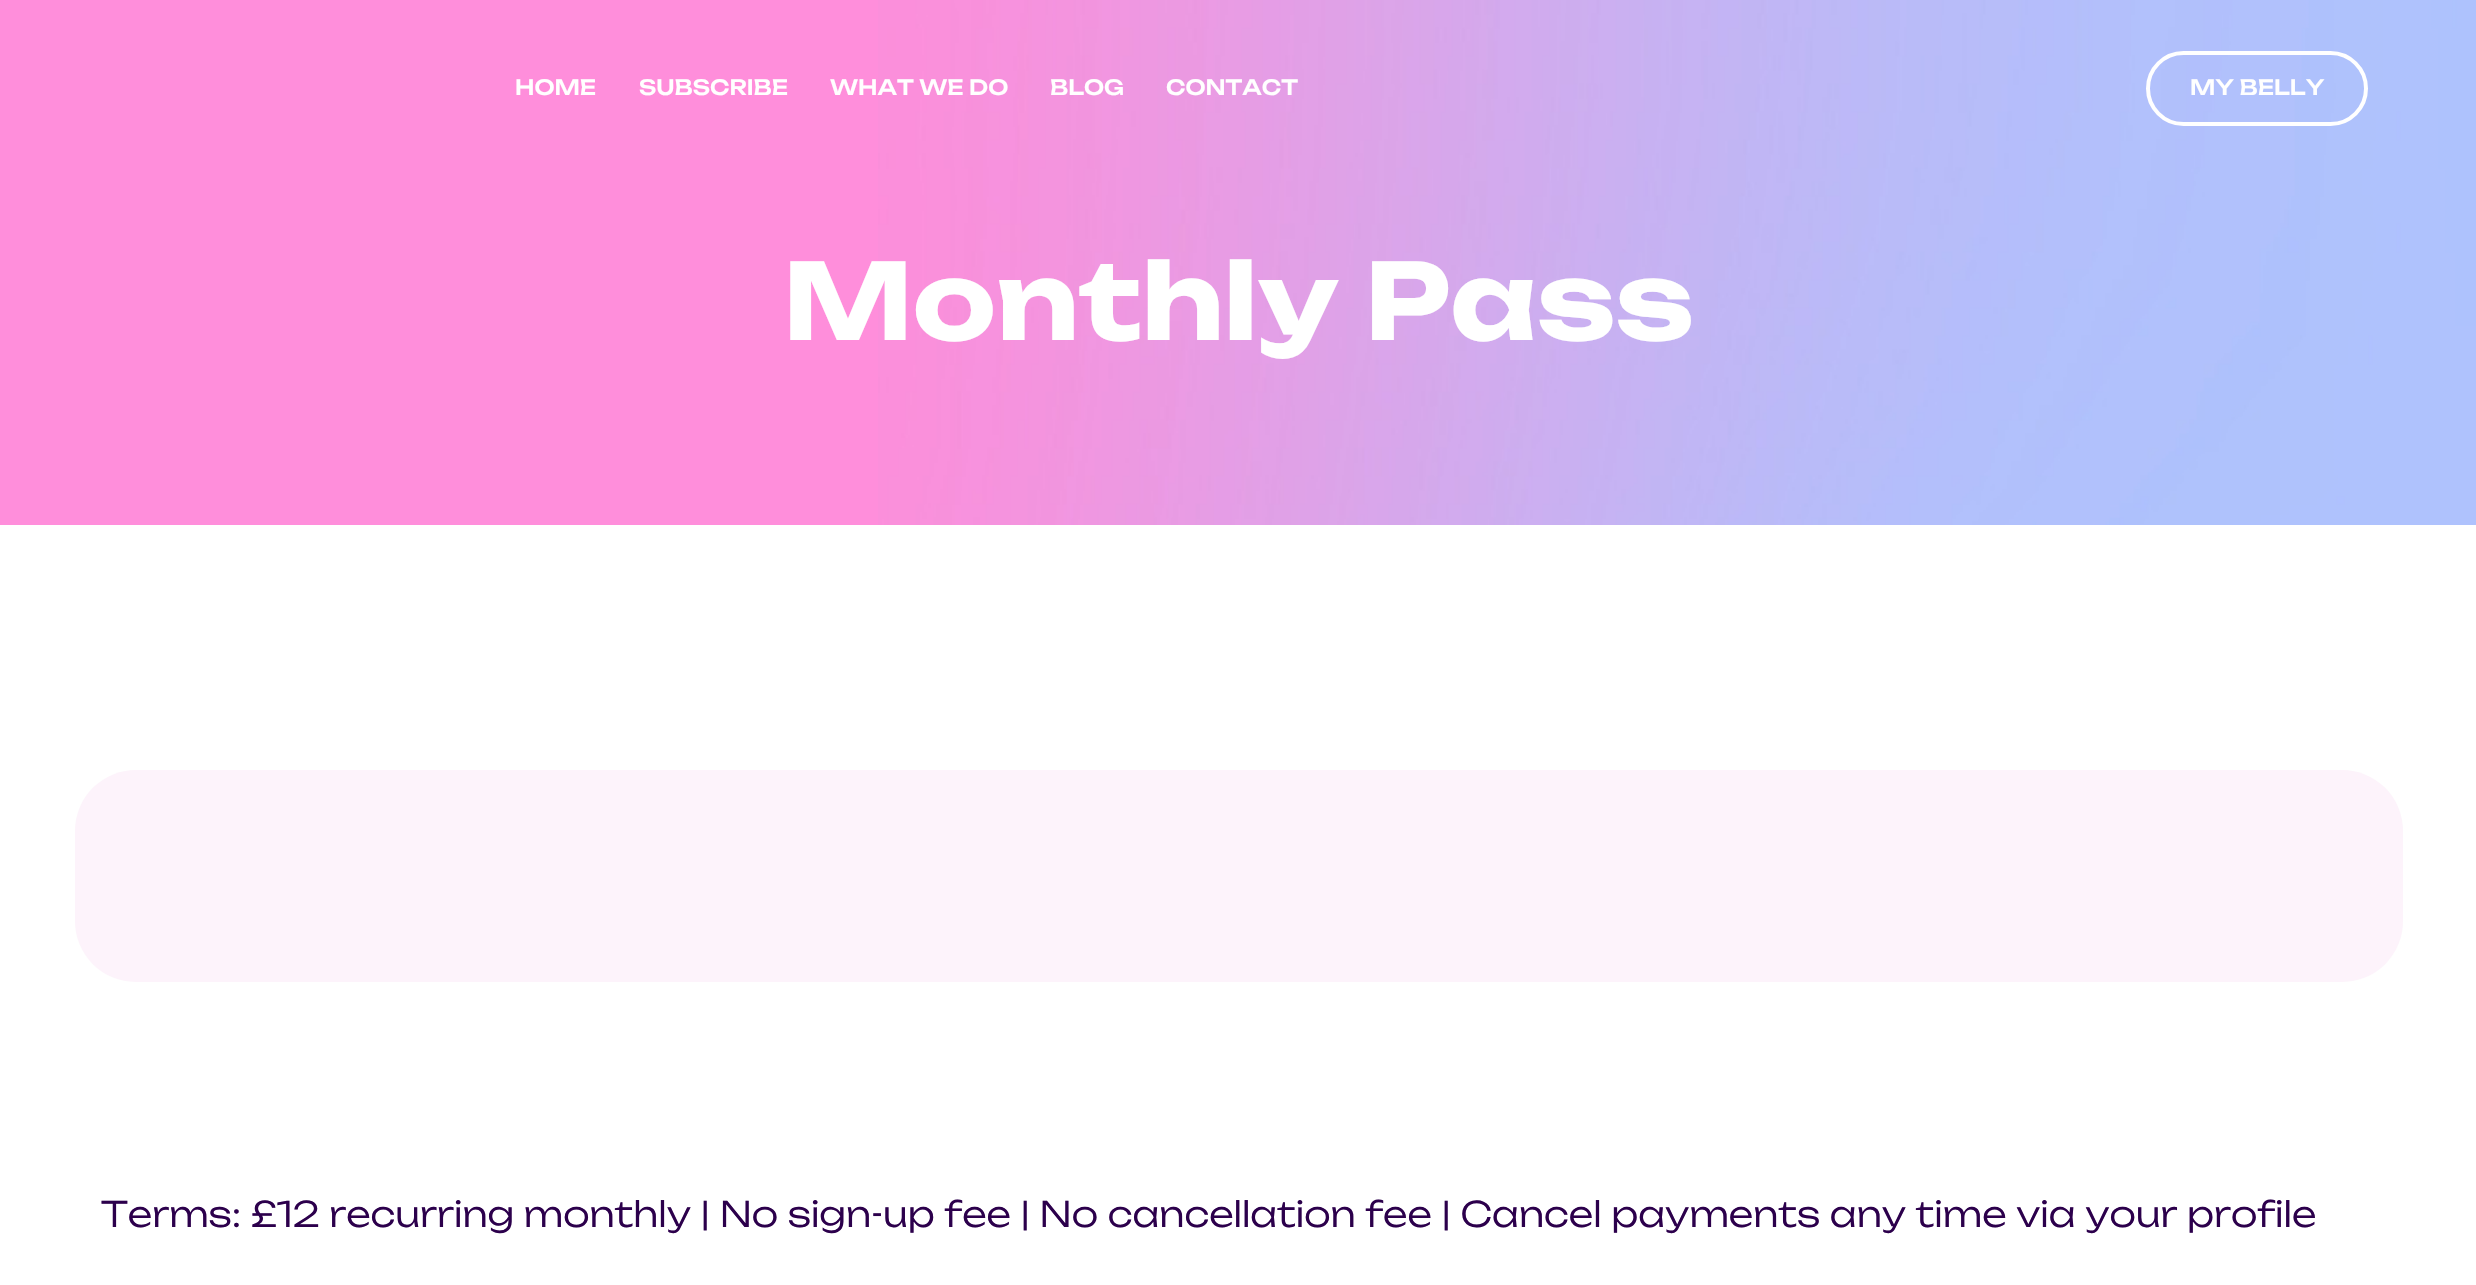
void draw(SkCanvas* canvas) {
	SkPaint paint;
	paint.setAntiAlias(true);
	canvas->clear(0xffffffff);
	paint.setColor(0xffff8edb);
	canvas->drawRect(SkRect::MakeXYWH(0, 0, 878, 525), paint);
	SkFont f1(fontMgr->matchFamilyStyle("Unbounded", SkFontStyle(500, SkFontStyle::kNormal_Width, SkFontStyle::kUpright_Slant)), 21);
	f1.setSubpixel(true);
	paint.setColor(0xffffffff);
	canvas->drawString("HOME", 515, 95, f1, paint);
	canvas->drawString("SUBSCRIBE", 639, 95, f1, paint);
	canvas->drawImageRect(SkImages::DeferredFromEncodedData(SkData::MakeFromFileName("img1.png")), SkRect::MakeXYWH(878, 0, 1598, 525), SkSamplingOptions());
	canvas->drawString("WHAT WE DO", 830, 95, f1, paint);
	canvas->drawString("BLOG", 1050, 95, f1, paint);
	canvas->drawString("CONTACT", 1166, 95, f1, paint);
	paint.setStroke(true);
	paint.setStrokeWidth(4);
	canvas->drawRoundRect(SkRect::MakeXYWH(2148, 53, 218, 71), 35.5, 35.5, paint);
	paint.setStroke(false);
	canvas->drawString("MY BELLY", 2190, 95, f1, paint);
	SkFont f2(fontMgr->matchFamilyStyle("Unbounded", SkFontStyle::Bold()), 105);
	f2.setSubpixel(true);
	canvas->drawString("Monthly Pass", 783, 340, f2, paint);
	paint.setColor(0xfffdf3fb);
	canvas->drawRoundRect(SkRect::MakeXYWH(75, 770, 2328, 212), 61, 61, paint);
	SkFont f3(fontMgr->matchFamilyStyle("Unbounded", SkFontStyle(300, SkFontStyle::kNormal_Width, SkFontStyle::kUpright_Slant)), 35);
	f3.setSubpixel(true);
	paint.setColor(0xff2c004c);
	canvas->drawString("Terms: £12 recurring monthly | No sign-up fee | No cancellation fee | Cancel payments any time via your profile", 101, 1227, f3, paint);
}
